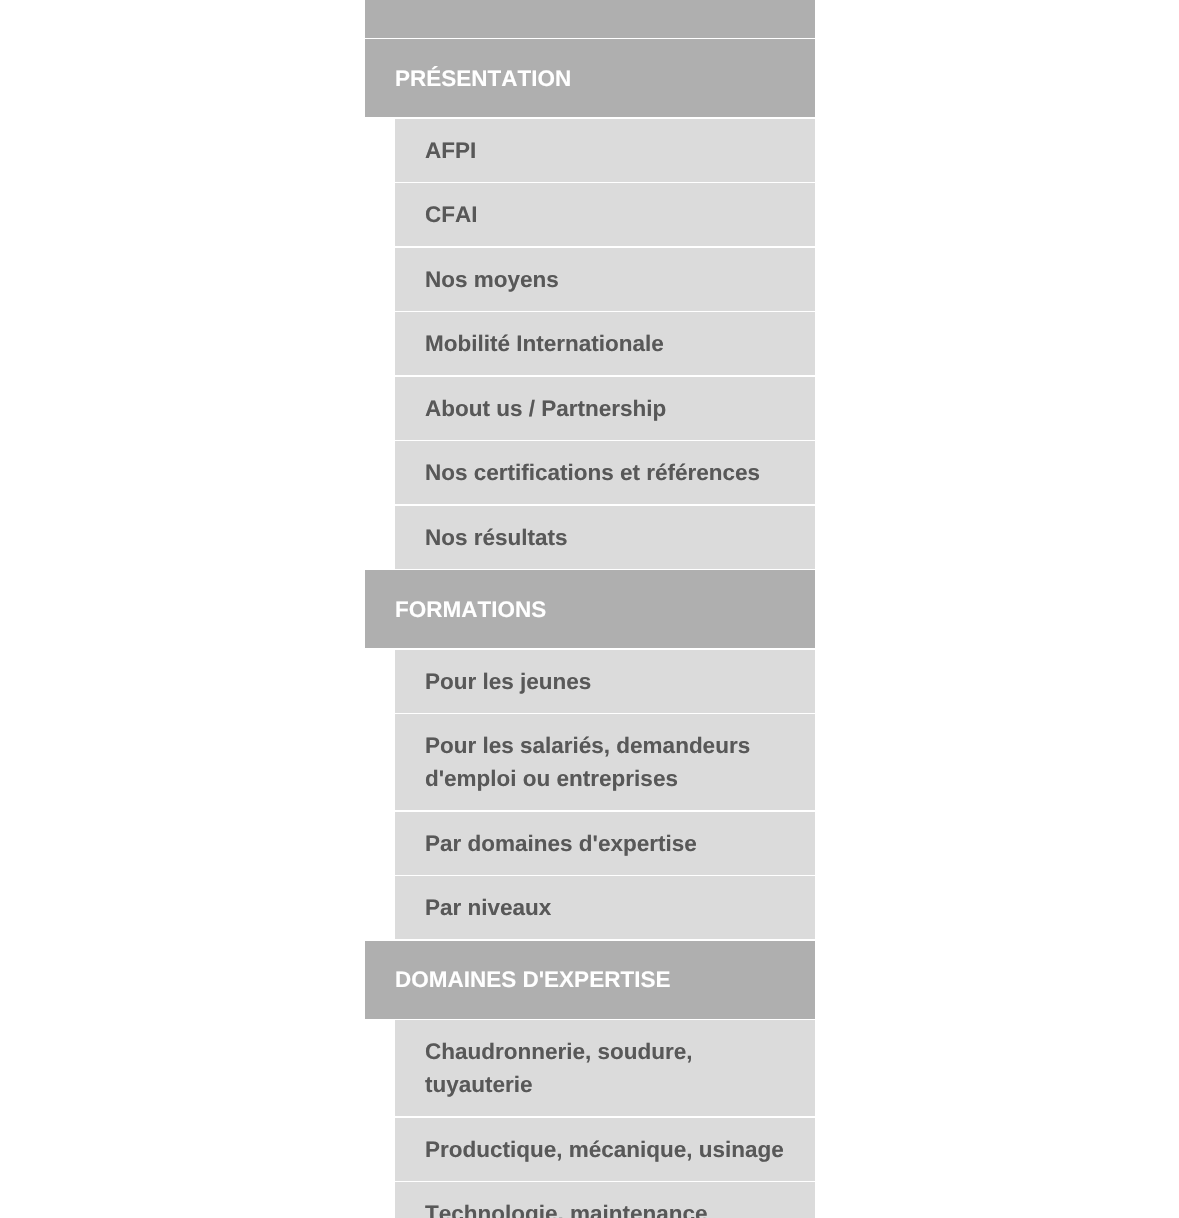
void draw(SkCanvas* canvas) {
	SkPaint paint;
	paint.setAntiAlias(true);
	canvas->clear(0xffffffff);
	paint.setColor(0xffafafaf);
	canvas->drawRect(SkRect::MakeXYWH(365, 0, 450, 38), paint);
	canvas->drawRect(SkRect::MakeXYWH(365, 39, 450, 78), paint);
	SkFont f1(fontMgr->matchFamilyStyle("Liberation Sans", SkFontStyle::Bold()), 22.5);
	f1.setSubpixel(true);
	paint.setColor(0xffffffff);
	canvas->drawString("PRÉSENTATION", 395, 86, f1, paint);
	paint.setColor(0xffdbdbdb);
	canvas->drawRect(SkRect::MakeXYWH(395, 119, 420, 63), paint);
	paint.setColor(0xff585858);
	canvas->drawString("AFPI", 425, 158, f1, paint);
	paint.setColor(0xffdbdbdb);
	canvas->drawRect(SkRect::MakeXYWH(395, 183, 420, 63), paint);
	paint.setColor(0xff585858);
	canvas->drawString("CFAI", 425, 222, f1, paint);
	paint.setColor(0xffdbdbdb);
	canvas->drawRect(SkRect::MakeXYWH(395, 248, 420, 63), paint);
	paint.setColor(0xff585858);
	canvas->drawString("Nos moyens", 425, 287, f1, paint);
	paint.setColor(0xffdbdbdb);
	canvas->drawRect(SkRect::MakeXYWH(395, 312, 420, 63), paint);
	paint.setColor(0xff585858);
	canvas->drawString("Mobilité Internationale", 425, 351, f1, paint);
	paint.setColor(0xffdbdbdb);
	canvas->drawRect(SkRect::MakeXYWH(395, 377, 420, 63), paint);
	paint.setColor(0xff585858);
	canvas->drawString("About us / Partnership", 425, 416, f1, paint);
	paint.setColor(0xffdbdbdb);
	canvas->drawRect(SkRect::MakeXYWH(395, 441, 420, 63), paint);
	paint.setColor(0xff585858);
	canvas->drawString("Nos certifications et références", 425, 480, f1, paint);
	paint.setColor(0xffdbdbdb);
	canvas->drawRect(SkRect::MakeXYWH(395, 506, 420, 63), paint);
	paint.setColor(0xff585858);
	canvas->drawString("Nos résultats", 425, 545, f1, paint);
	paint.setColor(0xffafafaf);
	canvas->drawRect(SkRect::MakeXYWH(365, 570, 450, 78), paint);
	paint.setColor(0xffffffff);
	canvas->drawString("FORMATIONS", 395, 617, f1, paint);
	paint.setColor(0xffdbdbdb);
	canvas->drawRect(SkRect::MakeXYWH(395, 650, 420, 63), paint);
	paint.setColor(0xff585858);
	canvas->drawString("Pour les jeunes", 425, 689, f1, paint);
	paint.setColor(0xffdbdbdb);
	canvas->drawRect(SkRect::MakeXYWH(395, 714, 420, 96), paint);
	paint.setColor(0xff585858);
	canvas->drawString("Pour les salariés, demandeurs", 425, 753, f1, paint);
	canvas->drawString("d'emploi ou entreprises", 425, 786, f1, paint);
	paint.setColor(0xffdbdbdb);
	canvas->drawRect(SkRect::MakeXYWH(395, 812, 420, 63), paint);
	paint.setColor(0xff585858);
	canvas->drawString("Par domaines d'expertise", 425, 851, f1, paint);
	paint.setColor(0xffdbdbdb);
	canvas->drawRect(SkRect::MakeXYWH(395, 876, 420, 63), paint);
	paint.setColor(0xff585858);
	canvas->drawString("Par niveaux", 425, 915, f1, paint);
	paint.setColor(0xffafafaf);
	canvas->drawRect(SkRect::MakeXYWH(365, 941, 450, 78), paint);
	paint.setColor(0xffffffff);
	canvas->drawString("DOMAINES D'EXPERTISE", 395, 987, f1, paint);
	paint.setColor(0xffdbdbdb);
	canvas->drawRect(SkRect::MakeXYWH(395, 1020, 420, 96), paint);
	paint.setColor(0xff585858);
	canvas->drawString("Chaudronnerie, soudure,", 425, 1059, f1, paint);
	canvas->drawString("tuyauterie", 425, 1092, f1, paint);
	paint.setColor(0xffdbdbdb);
	canvas->drawRect(SkRect::MakeXYWH(395, 1118, 420, 63), paint);
	paint.setColor(0xff585858);
	canvas->drawString("Productique, mécanique, usinage", 425, 1157, f1, paint);
	paint.setColor(0xffdbdbdb);
	canvas->drawRect(SkRect::MakeXYWH(395, 1182, 420, 36), paint);
	paint.setColor(0xff585858);
	canvas->drawString("Technologie, maintenance", 425, 1221, f1, paint);
}
